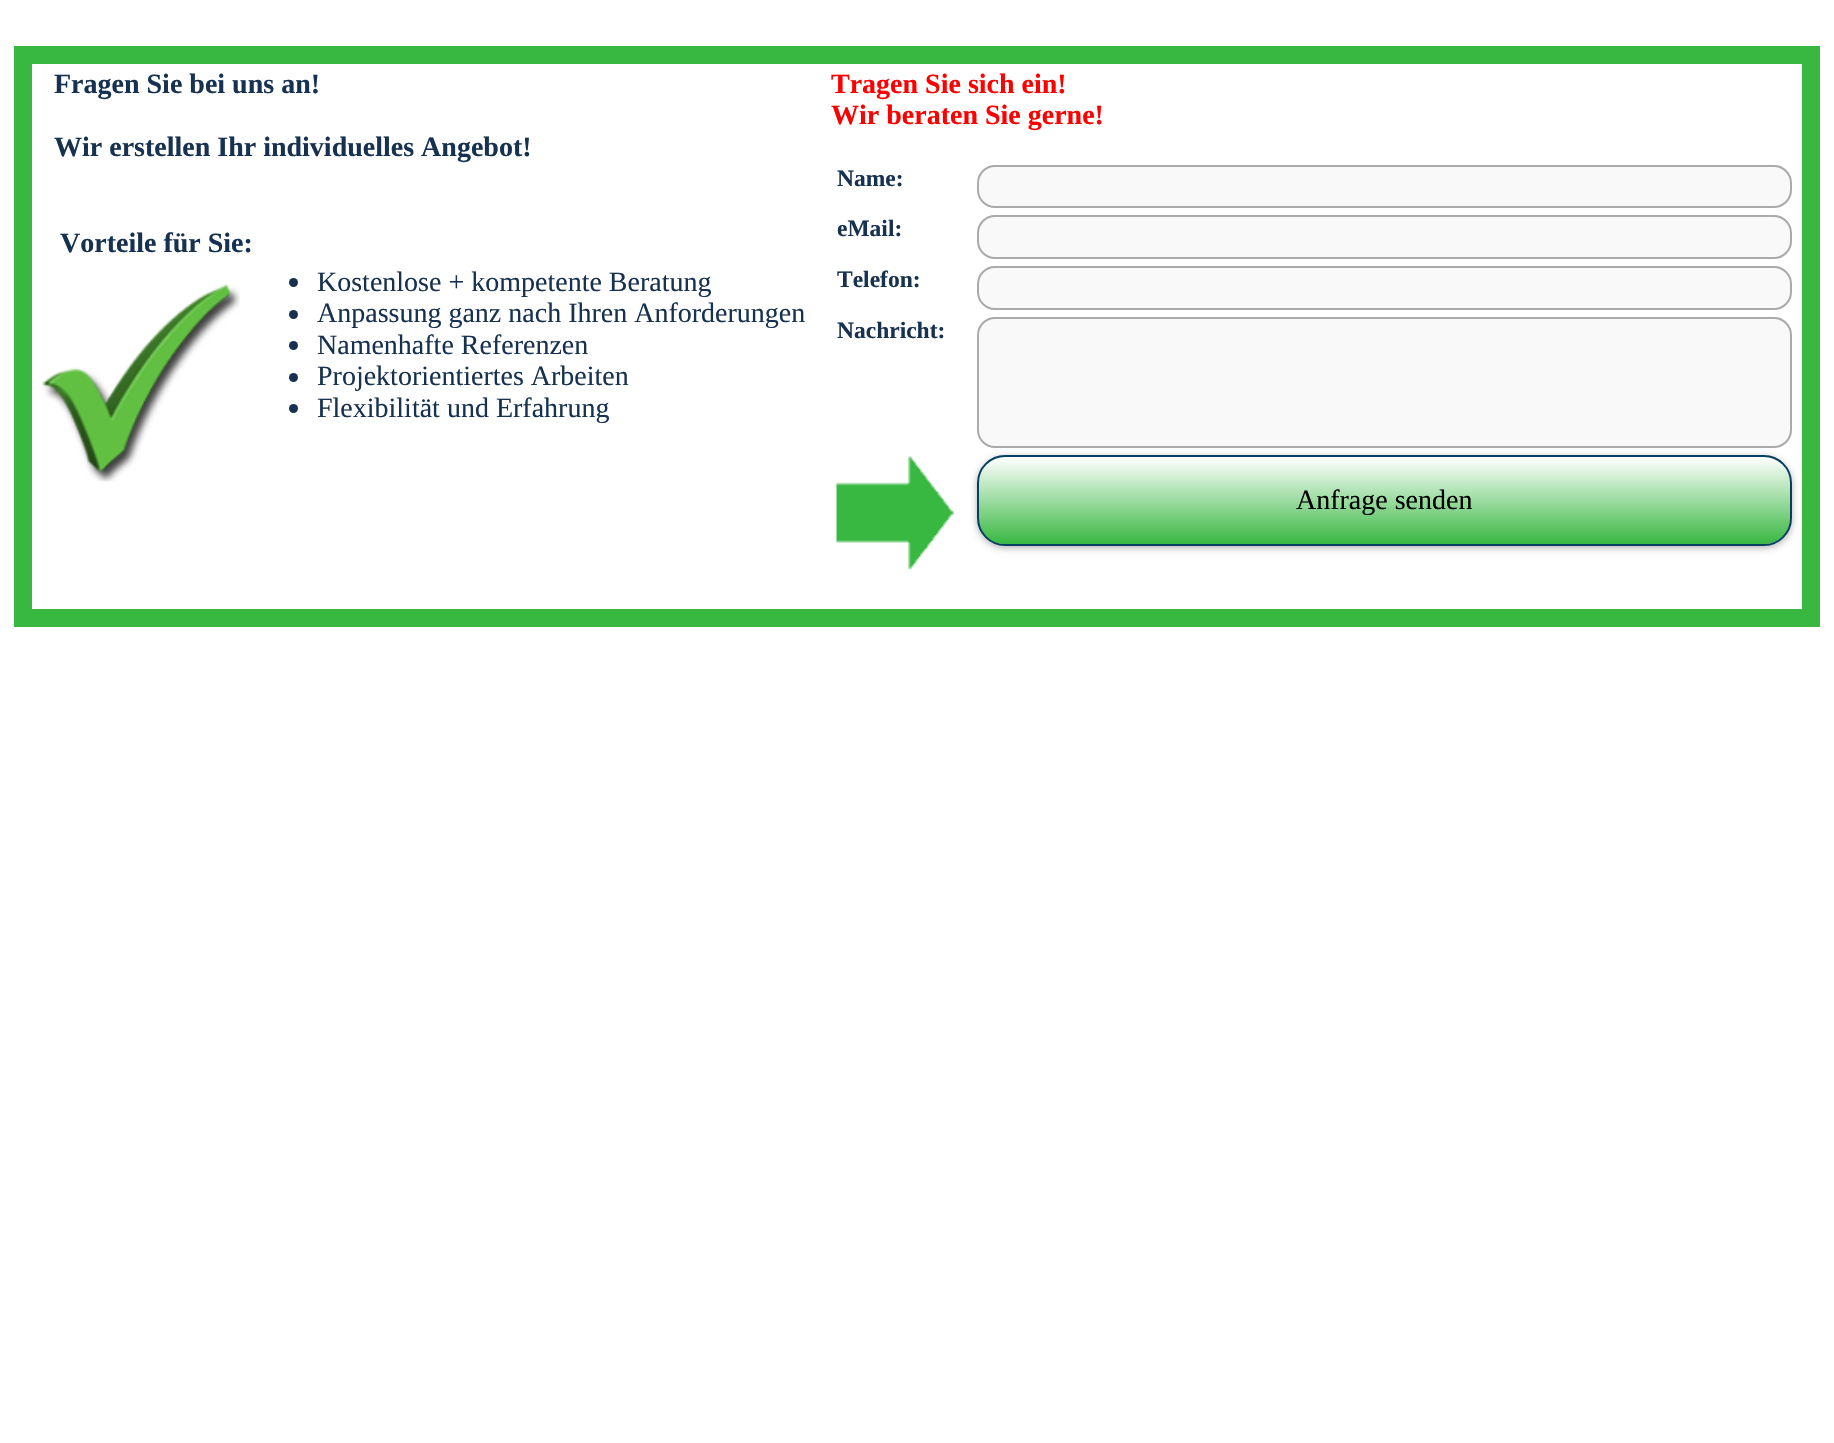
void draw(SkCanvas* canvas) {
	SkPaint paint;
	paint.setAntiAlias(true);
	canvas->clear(0xffffffff);
	paint.setStroke(true);
	paint.setStrokeWidth(18);
	paint.setColor(0xff38b841);
	canvas->drawRect(SkRect::MakeXYWH(23, 55, 1788, 563), paint);
	SkFont f1(fontMgr->matchFamilyStyle("Liberation Serif", SkFontStyle::Bold()), 28);
	f1.setSubpixel(true);
	paint.setStroke(false);
	paint.setColor(0xff173250);
	canvas->drawString("Fragen Sie bei uns an!", 54, 93, f1, paint);
	canvas->drawString("Wir erstellen Ihr individuelles Angebot!", 54, 156, f1, paint);
	canvas->drawString("Vorteile für Sie:", 60, 252, f1, paint);
	canvas->drawImageRect(SkImages::DeferredFromEncodedData(SkData::MakeFromFileName("img1.png")), SkRect::MakeXYWH(42, 283, 198, 199), SkSamplingOptions());
	canvas->drawCircle(293.5, 282.5, 4.5, paint);
	SkFont f2(fontMgr->matchFamilyStyle("Liberation Serif", SkFontStyle::Normal()), 28);
	f2.setSubpixel(true);
	canvas->drawString("Kostenlose + kompetente Beratung", 317, 291, f2, paint);
	canvas->drawCircle(293.5, 314.5, 4.5, paint);
	canvas->drawString("Anpassung ganz nach Ihren Anforderungen", 317, 322, f2, paint);
	canvas->drawCircle(293.5, 345.5, 4.5, paint);
	canvas->drawString("Namenhafte Referenzen", 317, 354, f2, paint);
	canvas->drawCircle(293.5, 377.5, 4.5, paint);
	canvas->drawString("Projektorientiertes Arbeiten", 317, 385, f2, paint);
	canvas->drawCircle(293.5, 408.5, 4.5, paint);
	canvas->drawString("Flexibilität und Erfahrung", 317, 417, f2, paint);
	paint.setColor(0xffff0000);
	canvas->drawString("Tragen Sie sich ein!", 831, 93, f1, paint);
	canvas->drawString("Wir beraten Sie gerne!", 831, 124, f1, paint);
	SkFont f3(fontMgr->matchFamilyStyle("Liberation Serif", SkFontStyle::Bold()), 23.5);
	f3.setSubpixel(true);
	paint.setColor(0xff173250);
	canvas->drawString("Name:", 837, 186, f3, paint);
	paint.setColor(0xfff9f9f9);
	canvas->drawRoundRect(SkRect::MakeXYWH(978, 166, 813, 41), 17, 17, paint);
	paint.setStroke(true);
	paint.setStrokeWidth(2);
	paint.setColor(0xffaaaaaa);
	canvas->drawRoundRect(SkRect::MakeXYWH(978, 166, 813, 41), 17, 17, paint);
	paint.setStroke(false);
	paint.setColor(0xff173250);
	canvas->drawString("eMail:", 837, 236, f3, paint);
	paint.setColor(0xfff9f9f9);
	canvas->drawRoundRect(SkRect::MakeXYWH(978, 216, 813, 42), 17, 17, paint);
	paint.setStroke(true);
	paint.setColor(0xffaaaaaa);
	canvas->drawRoundRect(SkRect::MakeXYWH(978, 216, 813, 42), 17, 17, paint);
	paint.setStroke(false);
	paint.setColor(0xff173250);
	canvas->drawString("Telefon:", 837, 287, f3, paint);
	paint.setColor(0xfff9f9f9);
	canvas->drawRoundRect(SkRect::MakeXYWH(978, 267, 813, 42), 17, 17, paint);
	paint.setStroke(true);
	paint.setColor(0xffaaaaaa);
	canvas->drawRoundRect(SkRect::MakeXYWH(978, 267, 813, 42), 17, 17, paint);
	paint.setStroke(false);
	paint.setColor(0xff173250);
	canvas->drawString("Nachricht:", 837, 338, f3, paint);
	paint.setColor(0xfff9f9f9);
	canvas->drawRoundRect(SkRect::MakeXYWH(978, 318, 813, 129), 17, 17, paint);
	paint.setStroke(true);
	paint.setColor(0xffaaaaaa);
	canvas->drawRoundRect(SkRect::MakeXYWH(978, 318, 813, 129), 17, 17, paint);
	canvas->drawImageRect(SkImages::DeferredFromEncodedData(SkData::MakeFromFileName("img2.png")), SkRect::MakeXYWH(836, 456, 118, 114), SkSamplingOptions());
	paint.setStroke(false);
	paint.setColor(0x4d000000);
	paint.setMaskFilter(SkMaskFilter::MakeBlur(kNormal_SkBlurStyle, 3.5));
	canvas->drawRoundRect(SkRect::MakeXYWH(977, 457, 815, 91), 28, 28, paint);
	paint.setMaskFilter(nullptr);
	{
		const SkColor colors[] = {0xffffffff, 0xff38b841};
		const float stops[] = {0, 1};
		const SkPoint ends[] = {{1384, 457}, {1384, 544}};
		paint.setShader(SkGradientShader::MakeLinear(ends, colors, stops, 2, SkTileMode::kClamp));
		paint.setAlpha(255);
	}
	canvas->drawRoundRect(SkRect::MakeXYWH(978, 457, 812, 87), 26, 26, paint);
	paint.setStroke(true);
	paint.setShader(nullptr);
	paint.setColor(0xff044062);
	canvas->drawRoundRect(SkRect::MakeXYWH(978, 456, 813, 89), 27, 27, paint);
	paint.setStroke(false);
	paint.setColor(0xff000000);
	canvas->drawString("Anfrage senden", 1296, 509, f2, paint);
}
